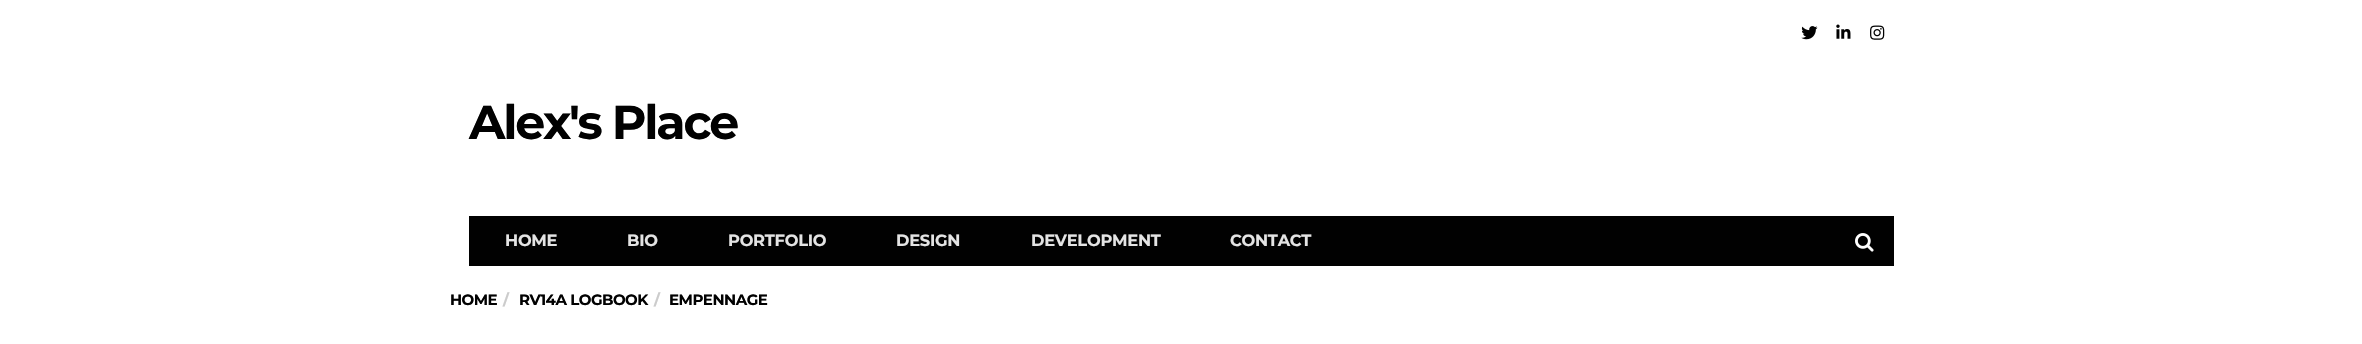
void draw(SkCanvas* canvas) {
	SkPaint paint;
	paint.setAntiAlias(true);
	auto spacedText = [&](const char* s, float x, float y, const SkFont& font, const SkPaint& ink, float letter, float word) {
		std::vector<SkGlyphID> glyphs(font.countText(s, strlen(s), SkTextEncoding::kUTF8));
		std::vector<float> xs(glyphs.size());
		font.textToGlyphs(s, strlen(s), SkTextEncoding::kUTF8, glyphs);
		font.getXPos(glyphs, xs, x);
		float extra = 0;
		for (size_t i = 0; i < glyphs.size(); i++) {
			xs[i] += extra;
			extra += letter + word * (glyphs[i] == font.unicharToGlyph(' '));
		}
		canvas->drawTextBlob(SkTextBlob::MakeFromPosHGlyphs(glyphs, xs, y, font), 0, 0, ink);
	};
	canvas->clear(0xffffffff);
	canvas->drawImageRect(SkImages::DeferredFromEncodedData(SkData::MakeFromFileName("img1.png")), SkRect::MakeXYWH(1801, 26, 17, 14), SkSamplingOptions());
	canvas->drawImageRect(SkImages::DeferredFromEncodedData(SkData::MakeFromFileName("img2.png")), SkRect::MakeXYWH(1836, 24, 15, 15), SkSamplingOptions());
	canvas->drawImageRect(SkImages::DeferredFromEncodedData(SkData::MakeFromFileName("img3.png")), SkRect::MakeXYWH(1870, 25, 15, 15), SkSamplingOptions());
	SkFont f1(fontMgr->matchFamilyStyle("Montserrat", SkFontStyle::Bold()), 47.5);
	f1.setSubpixel(true);
	paint.setColor(0xff010101);
	spacedText("Alex's Place", 469, 139, f1, paint, -2.25, 0);
	canvas->drawRect(SkRect::MakeXYWH(469, 216, 1425, 50), paint);
	SkFont f2(fontMgr->matchFamilyStyle("Montserrat", SkFontStyle::Bold()), 16.25);
	f2.setSubpixel(true);
	paint.setColor(0xffe4e4e4);
	spacedText("HOME", 505, 246, f2, paint, -0.25, 0);
	spacedText("BIO", 627, 246, f2, paint, -0.25, 0);
	spacedText("PORTFOLIO", 728, 246, f2, paint, -0.25, 0);
	spacedText("DESIGN", 896, 246, f2, paint, -0.25, 0);
	spacedText("DEVELOPMENT", 1031, 246, f2, paint, -0.25, 0);
	spacedText("CONTACT", 1230, 246, f2, paint, -0.25, 0);
	canvas->drawImageRect(SkImages::DeferredFromEncodedData(SkData::MakeFromFileName("img4.png")), SkRect::MakeXYWH(1855, 233, 19, 19), SkSamplingOptions());
	SkFont f3(fontMgr->matchFamilyStyle("Montserrat", SkFontStyle::Bold()), 15);
	f3.setSubpixel(true);
	paint.setColor(0xff010101);
	spacedText("HOME", 450, 305, f3, paint, -0.5, 0);
	paint.setColor(0xffcccccc);
	spacedText("/", 503, 305, f3, paint, -0.5, 0);
	paint.setColor(0xff010101);
	spacedText("RV14A LOGBOOK", 519, 305, f3, paint, -0.5, 0);
	paint.setColor(0xffcccccc);
	spacedText("/", 654, 305, f3, paint, -0.5, 0);
	paint.setColor(0xff010101);
	spacedText("EMPENNAGE", 669, 305, f3, paint, -0.5, 0);
}
